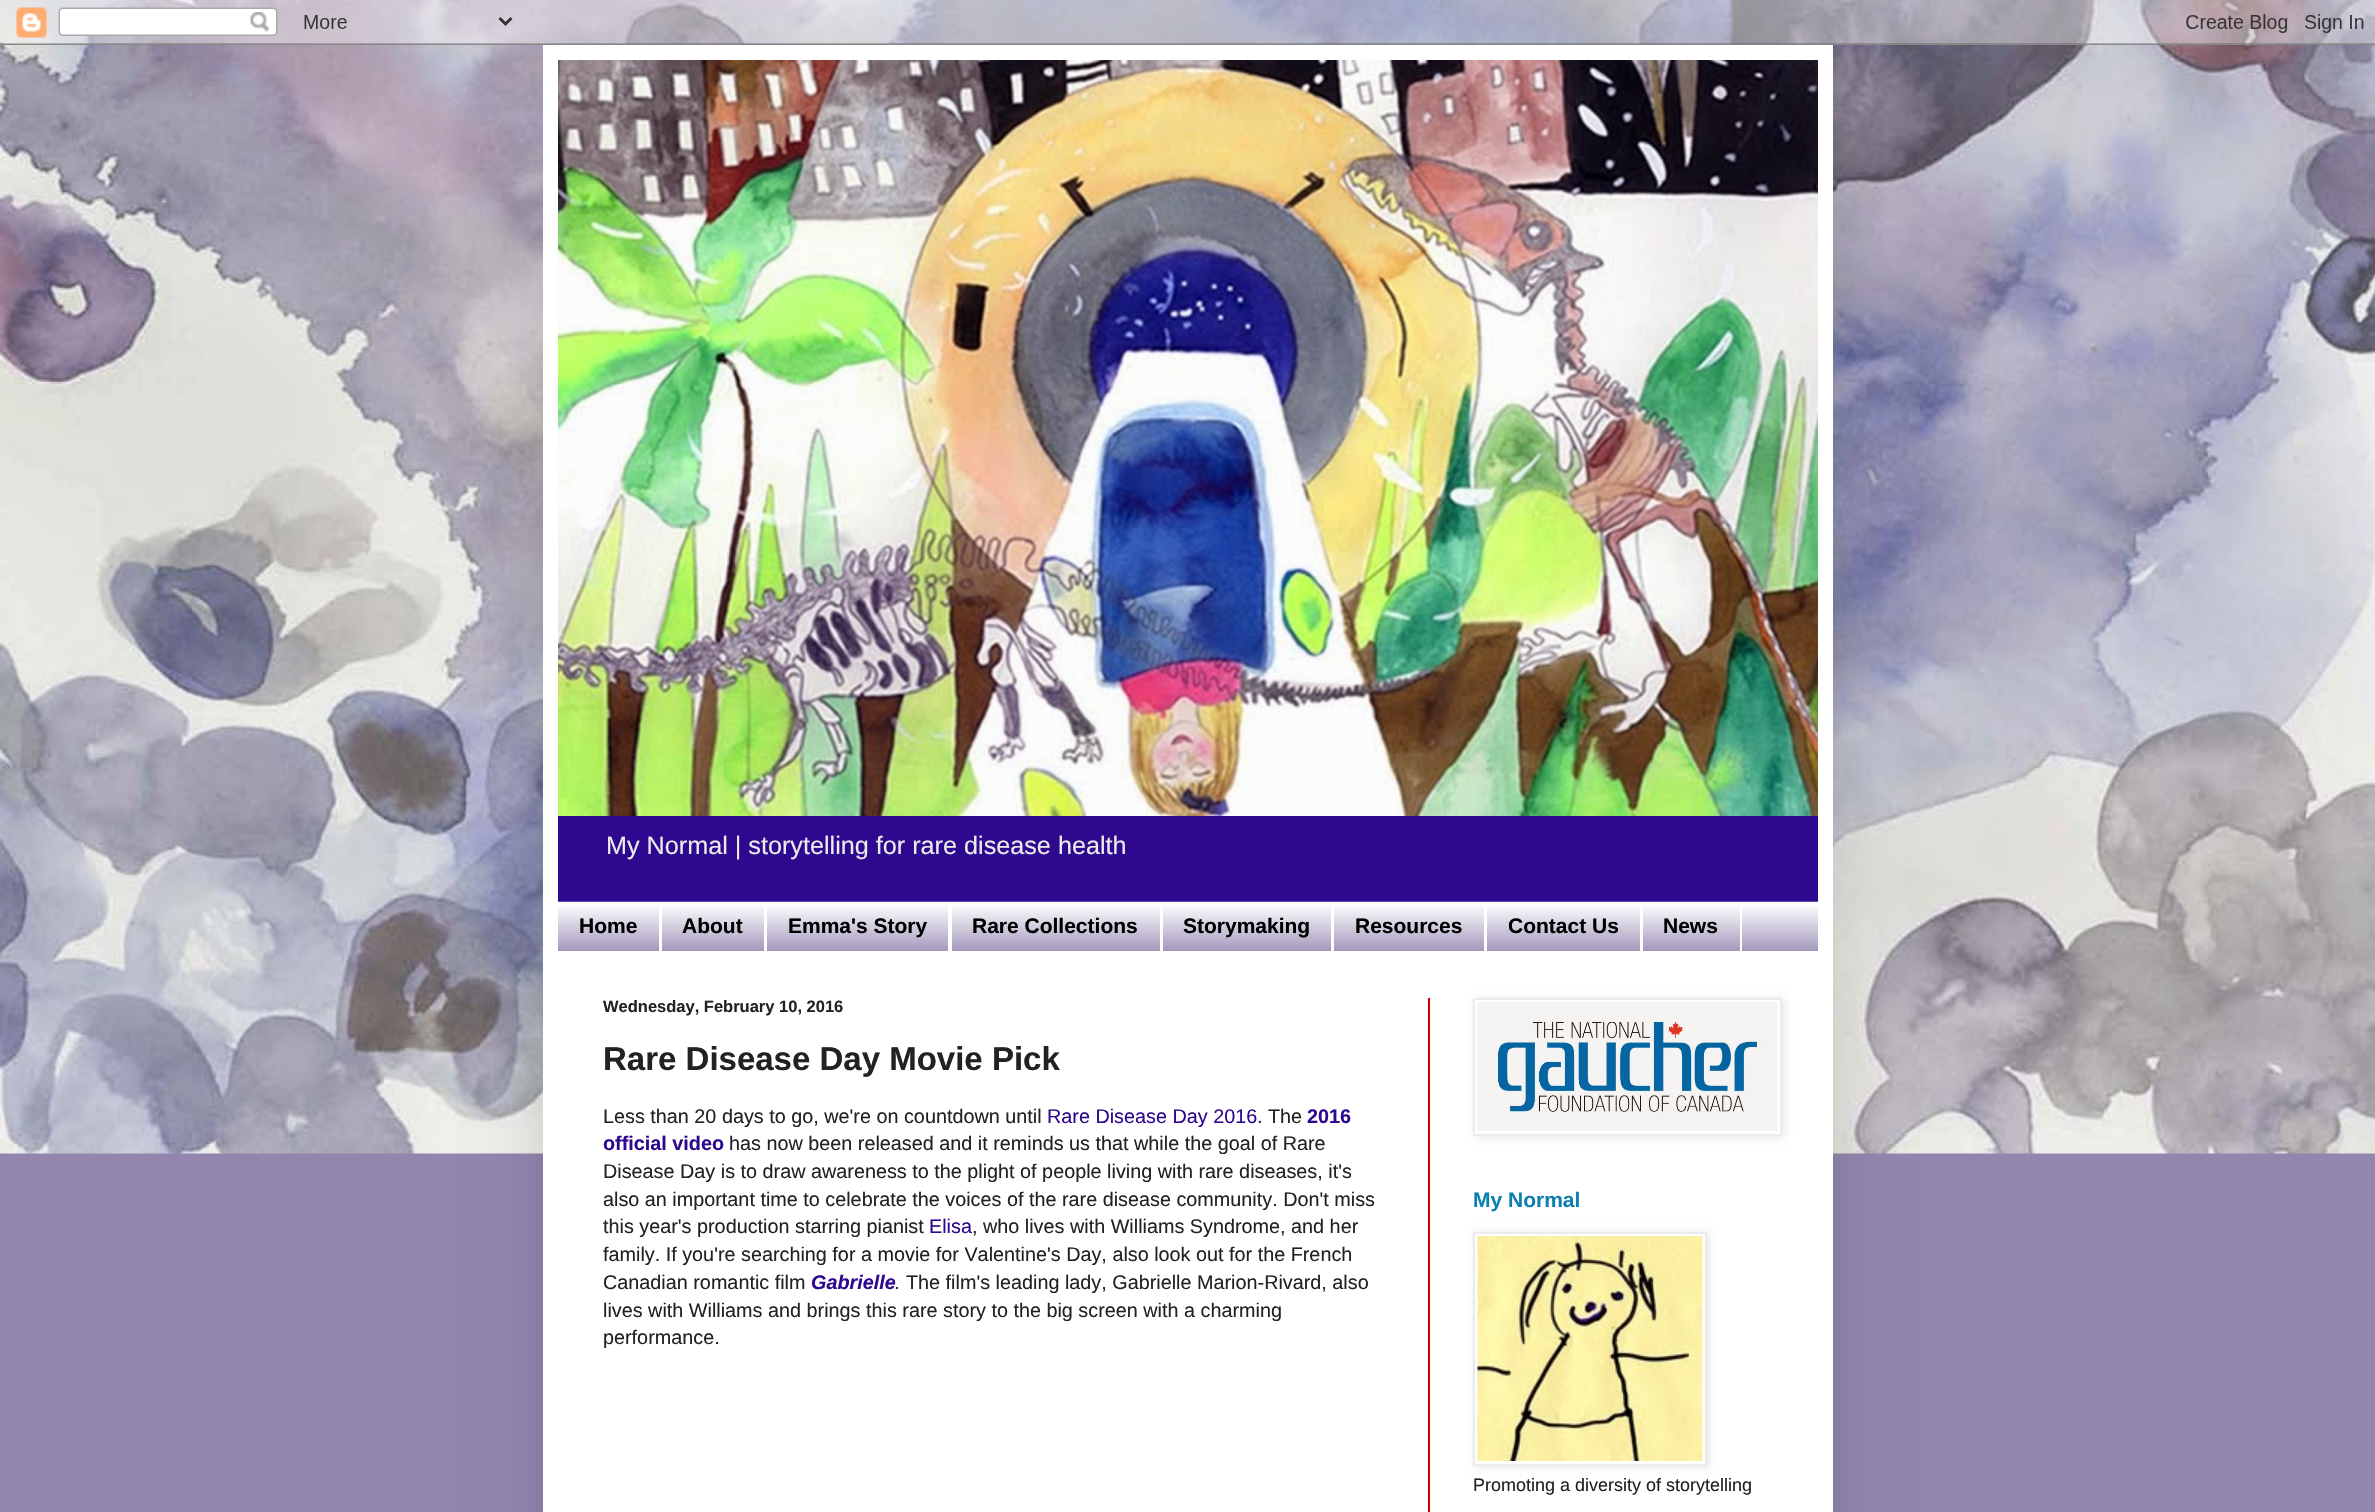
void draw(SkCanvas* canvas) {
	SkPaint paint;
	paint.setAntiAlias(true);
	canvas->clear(0xff9286af);
	canvas->drawImageRect(SkImages::DeferredFromEncodedData(SkData::MakeFromFileName("img1.png")), SkRect::MakeXYWH(0, 0, 2375, 1154), SkSamplingOptions());
	paint.setColor(0x26000000);
	paint.setMaskFilter(SkMaskFilter::MakeBlur(kNormal_SkBlurStyle, 30));
	canvas->drawRect(SkRect::MakeXYWH(543, 45, 1290, 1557), paint);
	paint.setMaskFilter(nullptr);
	canvas->drawImageRect(SkImages::DeferredFromEncodedData(SkData::MakeFromFileName("img2.png")), SkRect::MakeXYWH(0, 0, 2375, 45), SkSamplingOptions());
	paint.setColor(0xffffffff);
	canvas->drawRect(SkRect::MakeXYWH(543, 45, 1290, 1467), paint);
	paint.setColor(0xff2e088e);
	canvas->drawRect(SkRect::MakeXYWH(558, 816, 1260, 86), paint);
	canvas->drawImageRect(SkImages::DeferredFromEncodedData(SkData::MakeFromFileName("img3.png")), SkRect::MakeXYWH(558, 60, 1260, 756), SkSamplingOptions());
	SkFont f1(fontMgr->matchFamilyStyle("Liberation Sans", SkFontStyle::Normal()), 25.2);
	f1.setSubpixel(true);
	paint.setColor(0xffebebeb);
	canvas->drawString("My Normal | storytelling for rare disease health", 606, 854, f1, paint);
	paint.setColor(0xff9286af);
	canvas->drawRect(SkRect::MakeXYWH(558, 903, 1260, 48), paint);
	canvas->drawImageRect(SkImages::DeferredFromEncodedData(SkData::MakeFromFileName("img4.png")), SkRect::MakeXYWH(558, 901, 1260, 50), SkSamplingOptions());
	paint.setColor(0xffffffff);
	canvas->drawRect(SkRect::MakeXYWH(659, 902, 3, 49), paint);
	SkFont f2(fontMgr->matchFamilyStyle("Liberation Sans", SkFontStyle::Bold()), 21);
	f2.setSubpixel(true);
	paint.setColor(0xff000000);
	canvas->drawString("Home", 579, 933, f2, paint);
	paint.setColor(0xffffffff);
	canvas->drawRect(SkRect::MakeXYWH(764, 902, 3, 49), paint);
	paint.setColor(0xff000000);
	canvas->drawString("About", 682, 933, f2, paint);
	paint.setColor(0xffffffff);
	canvas->drawRect(SkRect::MakeXYWH(948, 902, 4, 49), paint);
	paint.setColor(0xff000000);
	canvas->drawString("Emma's Story", 788, 933, f2, paint);
	paint.setColor(0xffffffff);
	canvas->drawRect(SkRect::MakeXYWH(1160, 902, 3, 49), paint);
	paint.setColor(0xff000000);
	canvas->drawString("Rare Collections", 972, 933, f2, paint);
	paint.setColor(0xffffffff);
	canvas->drawRect(SkRect::MakeXYWH(1331, 902, 3, 49), paint);
	paint.setColor(0xff000000);
	canvas->drawString("Storymaking", 1183, 933, f2, paint);
	paint.setColor(0xffffffff);
	canvas->drawRect(SkRect::MakeXYWH(1484, 902, 3, 49), paint);
	paint.setColor(0xff000000);
	canvas->drawString("Resources", 1355, 933, f2, paint);
	paint.setColor(0xffffffff);
	canvas->drawRect(SkRect::MakeXYWH(1640, 902, 3, 49), paint);
	paint.setColor(0xff000000);
	canvas->drawString("Contact Us", 1508, 933, f2, paint);
	paint.setColor(0xffffffff);
	canvas->drawRect(SkRect::MakeXYWH(1740, 902, 2, 49), paint);
	paint.setColor(0xff000000);
	canvas->drawString("News", 1663, 933, f2, paint);
	paint.setColor(0xffcc0000);
	canvas->drawRect(SkRect::MakeXYWH(1428, 998, 2, 514), paint);
	SkFont f3(fontMgr->matchFamilyStyle("Liberation Sans", SkFontStyle::Bold()), 16.5);
	f3.setSubpixel(true);
	paint.setColor(0xff222222);
	canvas->drawString("Wednesday, February 10, 2016", 603, 1012, f3, paint);
	SkFont f4(fontMgr->matchFamilyStyle("Liberation Sans", SkFontStyle::Bold()), 33);
	f4.setSubpixel(true);
	canvas->drawString("Rare Disease Day Movie Pick", 603, 1070, f4, paint);
	SkFont f5(fontMgr->matchFamilyStyle("Liberation Sans", SkFontStyle::Normal()), 19.8);
	f5.setSubpixel(true);
	canvas->drawString("Less than 20 days to go, we're on countdown until", 603, 1123, f5, paint);
	paint.setColor(0xff2e088e);
	canvas->drawString("Rare Disease Day 2016", 1047, 1123, f5, paint);
	paint.setColor(0xff222222);
	canvas->drawString(". The", 1257, 1123, f5, paint);
	SkFont f6(fontMgr->matchFamilyStyle("Liberation Sans", SkFontStyle::Bold()), 19.8);
	f6.setSubpixel(true);
	paint.setColor(0xff2e088e);
	canvas->drawString("2016", 1307, 1123, f6, paint);
	canvas->drawString("official video", 603, 1150, f6, paint);
	paint.setColor(0xff222222);
	canvas->drawString("has now been released and it reminds us that while the goal of Rare", 729, 1150, f5, paint);
	canvas->drawString("Disease Day is to draw awareness to the plight of people living with rare diseases, it's", 603, 1178, f5, paint);
	canvas->drawString("also an important time to celebrate the voices of the rare disease community. Don't miss", 603, 1206, f5, paint);
	canvas->drawString("this year's production starring pianist", 603, 1233, f5, paint);
	paint.setColor(0xff2e088e);
	canvas->drawString("Elisa", 929, 1233, f5, paint);
	paint.setColor(0xff222222);
	canvas->drawString(", who lives with Williams Syndrome, and her", 972, 1233, f5, paint);
	canvas->drawString("family. If you're searching for a movie for Valentine's Day, also look out for the French", 603, 1261, f5, paint);
	canvas->drawString("Canadian romantic film", 603, 1289, f5, paint);
	SkFont f7(fontMgr->matchFamilyStyle("Liberation Sans", SkFontStyle::BoldItalic()), 19.8);
	f7.setSubpixel(true);
	paint.setColor(0xff2e088e);
	canvas->drawString("Gabrielle", 811, 1289, f7, paint);
	SkFont f8(fontMgr->matchFamilyStyle("Liberation Sans", SkFontStyle::Italic()), 19.8);
	f8.setSubpixel(true);
	paint.setColor(0xff222222);
	canvas->drawString(".", 895, 1289, f8, paint);
	canvas->drawString("The film's leading lady, Gabrielle Marion-Rivard, also", 906, 1289, f5, paint);
	canvas->drawString("lives with Williams and brings this rare story to the big screen with a charming", 603, 1317, f5, paint);
	canvas->drawString("performance.", 603, 1344, f5, paint);
	paint.setColor(0x1a000000);
	paint.setMaskFilter(SkMaskFilter::MakeBlur(kNormal_SkBlurStyle, 4));
	canvas->drawRect(SkRect::MakeXYWH(1475, 999, 309, 138), paint);
	paint.setMaskFilter(nullptr);
	paint.setColor(0xffffffff);
	canvas->drawRect(SkRect::MakeXYWH(1474, 999, 307, 136), paint);
	paint.setStroke(true);
	paint.setStrokeWidth(2);
	paint.setColor(0xffebebeb);
	canvas->drawRect(SkRect::MakeXYWH(1474, 999, 307, 136), paint);
	canvas->drawImageRect(SkImages::DeferredFromEncodedData(SkData::MakeFromFileName("img5.png")), SkRect::MakeXYWH(1477, 1002, 301, 129), SkSamplingOptions());
	paint.setStroke(false);
	paint.setColor(0xff0d80af);
	canvas->drawString("My Normal", 1473, 1207, f2, paint);
	paint.setColor(0x1a000000);
	paint.setMaskFilter(SkMaskFilter::MakeBlur(kNormal_SkBlurStyle, 4));
	canvas->drawRect(SkRect::MakeXYWH(1475, 1233, 234, 234), paint);
	paint.setMaskFilter(nullptr);
	paint.setColor(0xffffffff);
	canvas->drawRect(SkRect::MakeXYWH(1474, 1233, 232, 232), paint);
	paint.setStroke(true);
	paint.setColor(0xffebebeb);
	canvas->drawRect(SkRect::MakeXYWH(1474, 1233, 232, 232), paint);
	canvas->drawImageRect(SkImages::DeferredFromEncodedData(SkData::MakeFromFileName("img6.png")), SkRect::MakeXYWH(1477, 1236, 226, 225), SkSamplingOptions());
	SkFont f9(fontMgr->matchFamilyStyle("Liberation Sans", SkFontStyle::Normal()), 18);
	f9.setSubpixel(true);
	paint.setStroke(false);
	paint.setColor(0xff222222);
	canvas->drawString("Promoting a diversity of storytelling", 1473, 1491, f9, paint);
}
